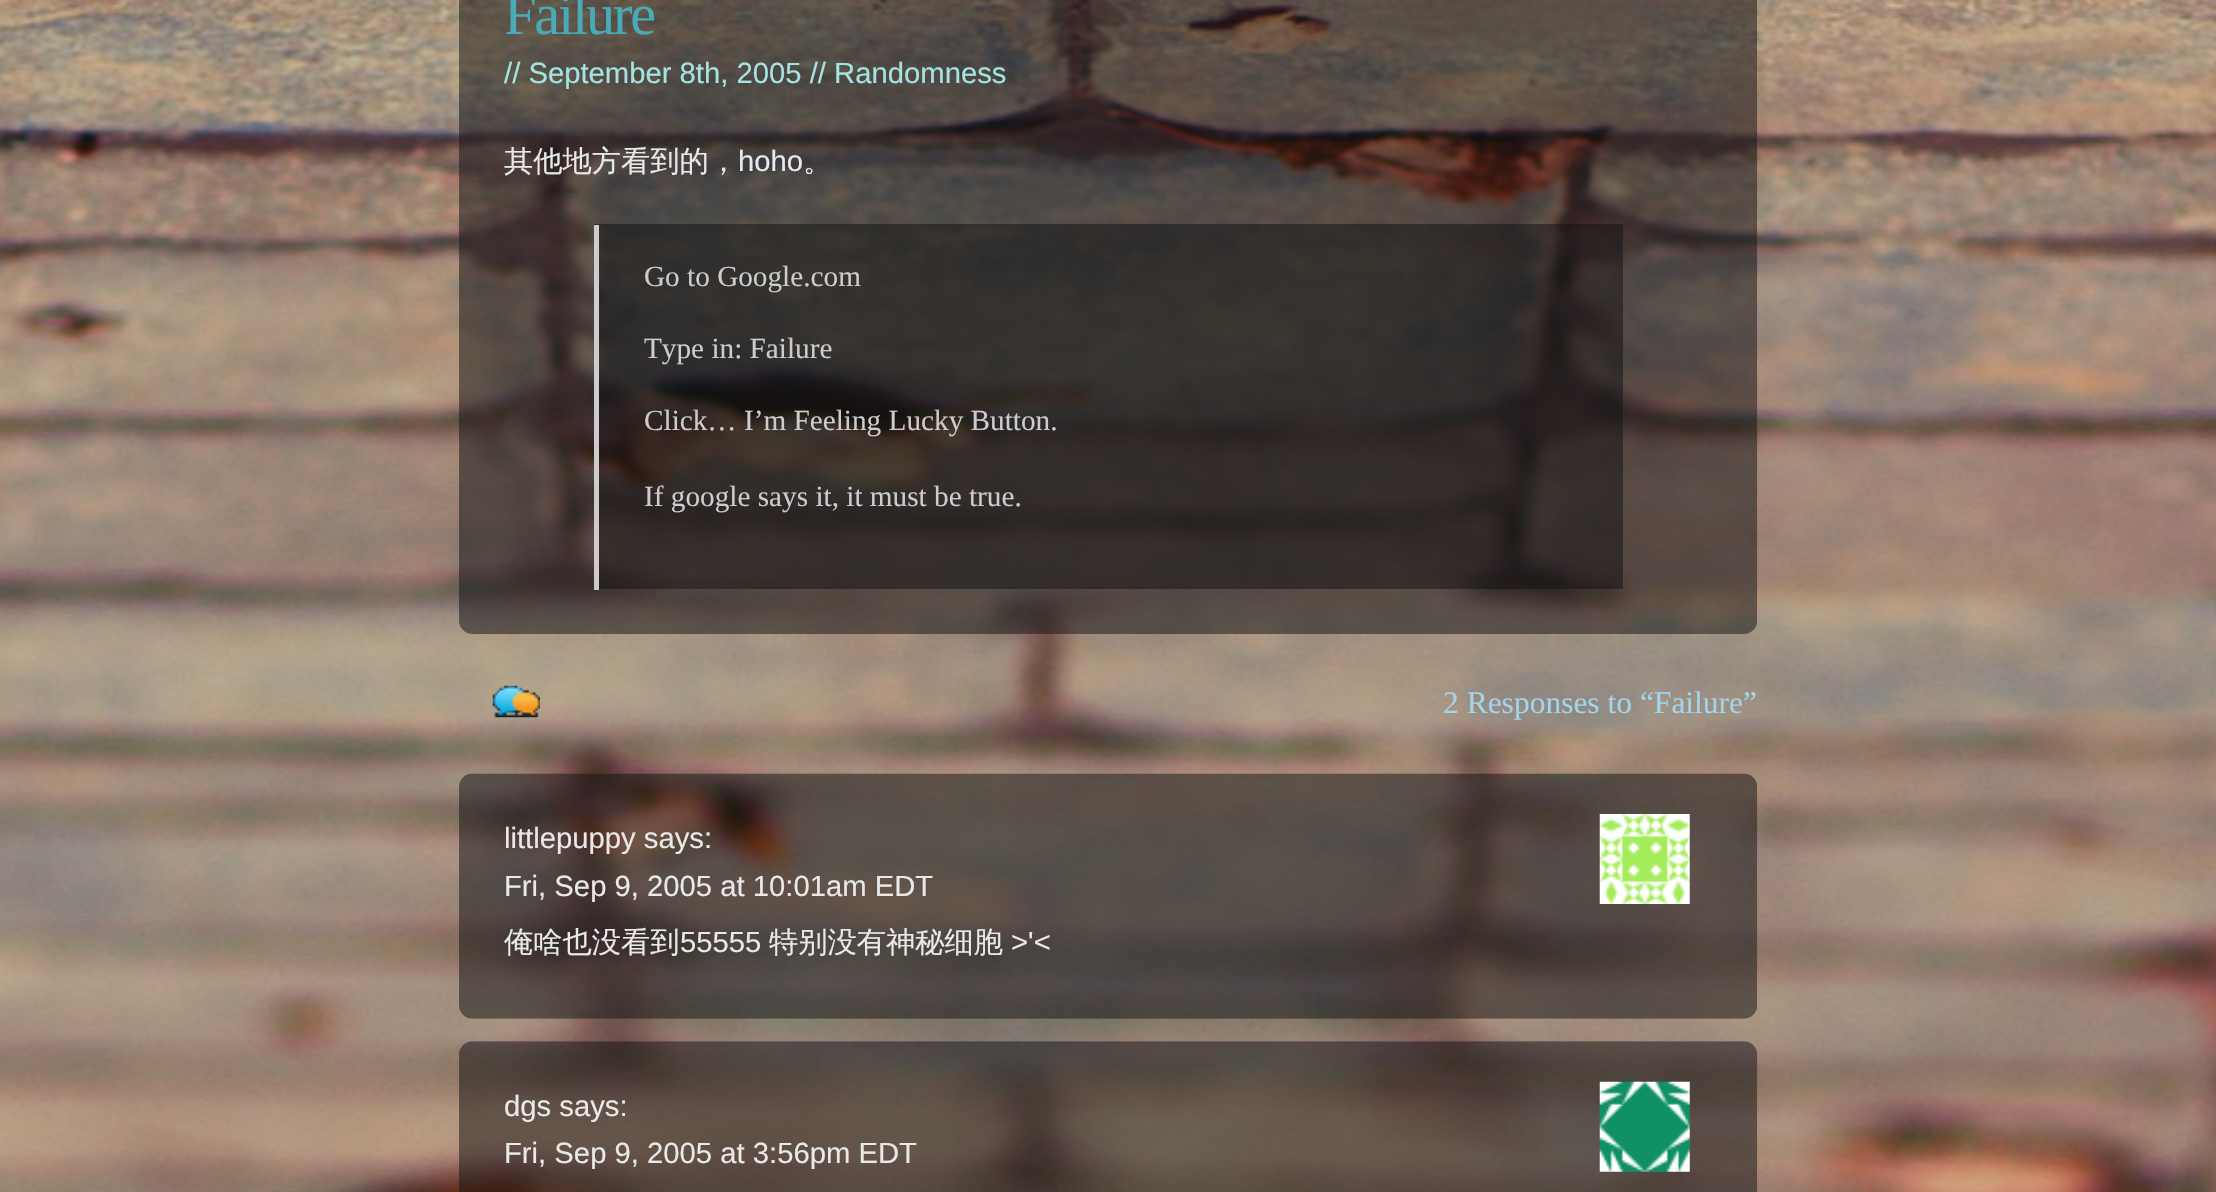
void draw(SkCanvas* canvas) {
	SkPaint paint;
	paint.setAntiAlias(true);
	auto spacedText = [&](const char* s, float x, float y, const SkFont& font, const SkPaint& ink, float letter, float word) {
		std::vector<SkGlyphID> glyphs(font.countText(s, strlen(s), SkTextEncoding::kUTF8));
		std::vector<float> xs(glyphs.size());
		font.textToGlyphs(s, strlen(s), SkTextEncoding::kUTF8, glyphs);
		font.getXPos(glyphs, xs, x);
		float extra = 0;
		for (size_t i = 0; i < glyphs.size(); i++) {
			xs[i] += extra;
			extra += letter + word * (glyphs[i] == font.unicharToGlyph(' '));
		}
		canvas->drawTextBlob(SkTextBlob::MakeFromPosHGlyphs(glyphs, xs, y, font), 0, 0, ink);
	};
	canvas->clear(0xffffffff);
	canvas->drawImageRect(SkImages::DeferredFromEncodedData(SkData::MakeFromFileName("img1.png")), SkRect::MakeXYWH(0, 0, 2216, 1192), SkSamplingOptions());
	canvas->drawImageRect(SkImages::DeferredFromEncodedData(SkData::MakeFromFileName("img2.png")), SkRect::MakeXYWH(459, 0, 1299, 634), SkSamplingOptions());
	SkFont f1(fontMgr->matchFamilyStyle("Liberation Serif", SkFontStyle::Normal()), 58.5);
	f1.setSubpixel(true);
	paint.setColor(0xff48abb7);
	spacedText("Failure", 504, 34, f1, paint, -2.25, 0);
	SkFont f2(fontMgr->matchFamilyStyle("Liberation Sans", SkFontStyle::Normal()), 29.25);
	f2.setSubpixel(true);
	paint.setColor(0xffa3e4e2);
	canvas->drawString("// September 8th, 2005 // Randomness", 504, 83, f2, paint);
	SkFont f3(fontMgr->matchFamilyStyle("WenQuanYi Zen Hei", SkFontStyle(500, SkFontStyle::kNormal_Width, SkFontStyle::kUpright_Slant)), 29.25);
	f3.setSubpixel(true);
	paint.setColor(0xffe9e9e9);
	canvas->drawString("其他地方看到的，", 504, 171, f3, paint);
	canvas->drawString("hoho", 738, 171, f2, paint);
	canvas->drawString("。", 803, 171, f3, paint);
	paint.setColor(0x80101012);
	canvas->drawRect(SkRect::MakeXYWH(594, 224, 1029, 365), paint);
	paint.setColor(0xffcccccc);
	canvas->drawRect(SkRect::MakeXYWH(594, 225, 5, 365), paint);
	SkFont f4(fontMgr->matchFamilyStyle("Liberation Serif", SkFontStyle::Normal()), 29.25);
	f4.setSubpixel(true);
	canvas->drawString("Go to Google.com", 644, 286, f4, paint);
	canvas->drawString("Type in: Failure", 644, 358, f4, paint);
	canvas->drawString("Click… I’m Feeling Lucky Button.", 644, 430, f4, paint);
	canvas->drawString("If google says it, it must be true.", 644, 506, f4, paint);
	canvas->drawImageRect(SkImages::DeferredFromEncodedData(SkData::MakeFromFileName("img3.png")), SkRect::MakeXYWH(492, 685, 48, 33), SkSamplingOptions());
	SkFont f5(fontMgr->matchFamilyStyle("Liberation Serif", SkFontStyle::Normal()), 31.5);
	f5.setSubpixel(true);
	paint.setColor(0xffa3d5ea);
	canvas->drawString("2 Responses to “Failure”", 1443, 713, f5, paint);
	canvas->drawImageRect(SkImages::DeferredFromEncodedData(SkData::MakeFromFileName("img4.png")), SkRect::MakeXYWH(459, 773, 1299, 246), SkSamplingOptions());
	paint.setColor(0xffe9e9e9);
	canvas->drawString("littlepuppy says:", 504, 848, f2, paint);
	canvas->drawImageRect(SkImages::DeferredFromEncodedData(SkData::MakeFromFileName("img5.png")), SkRect::MakeXYWH(1599, 814, 91, 90), SkSamplingOptions());
	canvas->drawString("Fri, Sep 9, 2005 at 10:01am EDT", 504, 896, f2, paint);
	canvas->drawString("俺啥也没看到", 504, 952, f3, paint);
	canvas->drawString("55555", 680, 952, f2, paint);
	canvas->drawString("特别没有神秘细胞", 769, 952, f3, paint);
	canvas->drawString(">'<", 1011, 952, f2, paint);
	canvas->drawImageRect(SkImages::DeferredFromEncodedData(SkData::MakeFromFileName("img6.png")), SkRect::MakeXYWH(459, 1041, 1299, 151), SkSamplingOptions());
	canvas->drawString("dgs says:", 504, 1116, f2, paint);
	canvas->drawImageRect(SkImages::DeferredFromEncodedData(SkData::MakeFromFileName("img7.png")), SkRect::MakeXYWH(1599, 1081, 91, 91), SkSamplingOptions());
	canvas->drawString("Fri, Sep 9, 2005 at 3:56pm EDT", 504, 1163, f2, paint);
}
